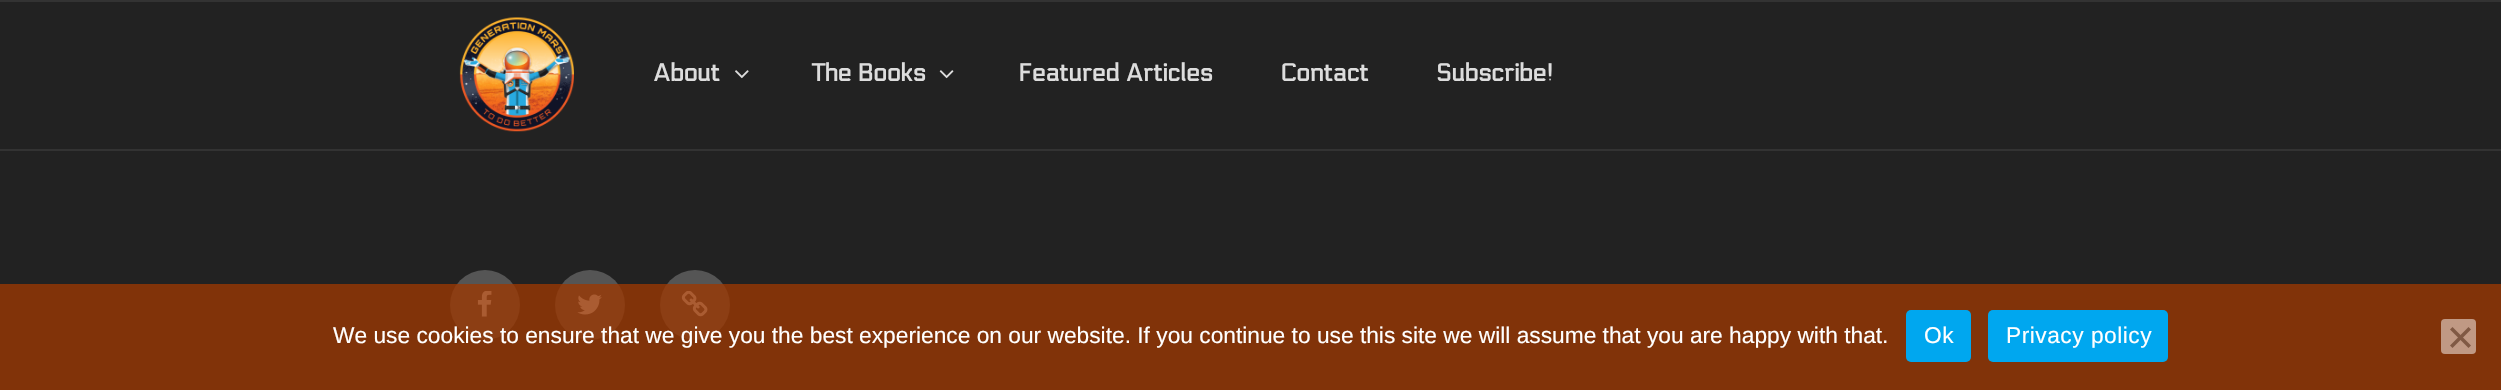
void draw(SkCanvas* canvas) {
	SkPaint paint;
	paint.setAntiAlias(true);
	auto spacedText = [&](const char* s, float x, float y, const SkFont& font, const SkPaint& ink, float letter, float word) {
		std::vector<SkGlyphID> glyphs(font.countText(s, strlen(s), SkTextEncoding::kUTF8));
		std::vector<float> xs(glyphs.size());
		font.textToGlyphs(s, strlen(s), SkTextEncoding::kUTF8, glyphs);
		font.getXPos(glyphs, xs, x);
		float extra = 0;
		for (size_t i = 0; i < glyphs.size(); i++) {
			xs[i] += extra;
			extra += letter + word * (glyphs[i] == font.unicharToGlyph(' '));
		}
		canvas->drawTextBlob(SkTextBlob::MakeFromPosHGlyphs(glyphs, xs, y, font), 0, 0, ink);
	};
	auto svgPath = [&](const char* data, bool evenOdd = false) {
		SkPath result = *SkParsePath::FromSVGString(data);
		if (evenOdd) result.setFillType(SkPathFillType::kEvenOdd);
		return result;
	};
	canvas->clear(0xff222222);
	paint.setColor(0xff333333);
	canvas->drawRect(SkRect::MakeXYWH(0, 0, 2501, 2), paint);
	canvas->drawRect(SkRect::MakeXYWH(0, 149, 2501, 2), paint);
	canvas->drawImageRect(SkImages::DeferredFromEncodedData(SkData::MakeFromFileName("img1.png")), SkRect::MakeXYWH(459, 17, 115, 115), SkSamplingOptions());
	SkFont f1(fontMgr->matchFamilyStyle("Electrolize", SkFontStyle::Bold()), 24.5);
	f1.setSubpixel(true);
	paint.setColor(0xffdddddd);
	canvas->drawString("About", 653, 81, f1, paint);
	canvas->drawImageRect(SkImages::DeferredFromEncodedData(SkData::MakeFromFileName("img2.png")), SkRect::MakeXYWH(735, 70, 14, 9), SkSamplingOptions());
	canvas->drawString("The Books", 812, 81, f1, paint);
	canvas->drawImageRect(SkImages::DeferredFromEncodedData(SkData::MakeFromFileName("img3.png")), SkRect::MakeXYWH(939, 70, 15, 9), SkSamplingOptions());
	canvas->drawString("Featured Articles", 1018, 81, f1, paint);
	canvas->drawString("Contact", 1280, 81, f1, paint);
	canvas->drawString("Subscribe!", 1436, 81, f1, paint);
	paint.setColor(0xff555555);
	canvas->drawCircle(485, 305, 35, paint);
	canvas->drawImageRect(SkImages::DeferredFromEncodedData(SkData::MakeFromFileName("img4.png")), SkRect::MakeXYWH(477, 291, 15, 26), SkSamplingOptions());
	canvas->drawCircle(590, 305, 35, paint);
	canvas->drawImageRect(SkImages::DeferredFromEncodedData(SkData::MakeFromFileName("img5.png")), SkRect::MakeXYWH(577, 294, 25, 21), SkSamplingOptions());
	canvas->drawCircle(695, 305, 35, paint);
	canvas->drawImageRect(SkImages::DeferredFromEncodedData(SkData::MakeFromFileName("img6.png")), SkRect::MakeXYWH(681, 291, 27, 26), SkSamplingOptions());
	paint.setColor(0xc79b3701);
	canvas->drawRect(SkRect::MakeXYWH(0, 284, 2501, 106), paint);
	SkFont f2(fontMgr->matchFamilyStyle("Liberation Sans", SkFontStyle::Normal()), 22.75);
	f2.setSubpixel(true);
	paint.setColor(0xffffffff);
	canvas->drawString("We use cookies to ensure that we give you the best experience on our website. If you continue to use this site we will assume that you are happy with that.", 333, 343, f2, paint);
	paint.setColor(0xff00a7ef);
	canvas->drawRoundRect(SkRect::MakeXYWH(1906, 310, 65, 52), 5, 5, paint);
	paint.setColor(0xffffffff);
	spacedText("Ok", 1924, 343, f2, paint, 0.5, 0);
	paint.setColor(0xff00a7ef);
	canvas->drawRoundRect(SkRect::MakeXYWH(1988, 310, 180, 52), 5, 5, paint);
	paint.setColor(0xffffffff);
	spacedText("Privacy policy", 2006, 343, f2, paint, 0.5, 0);
	paint.setColor(0xffc09984);
	canvas->drawRoundRect(SkRect::MakeXYWH(2441, 319, 35, 35), 4, 4, paint);
	paint.setColor(0xff805944);
	canvas->drawPath(svgPath("M2468.5 327L2471 329.5L2452.5 348L2450 345.5Z"), paint);
	canvas->drawPath(svgPath("M2450 329.5L2452.5 327L2471 345.5L2468.5 348Z"), paint);
}
